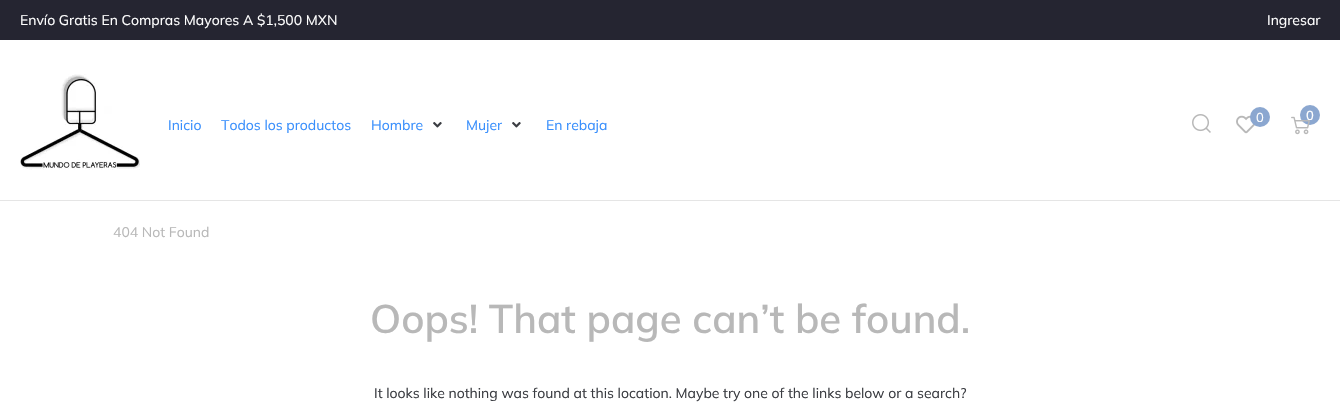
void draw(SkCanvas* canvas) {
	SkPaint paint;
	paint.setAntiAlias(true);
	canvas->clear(0xffffffff);
	paint.setColor(0xff252531);
	canvas->drawRect(SkRect::MakeXYWH(0, 0, 1340, 40), paint);
	SkFont f1(fontMgr->matchFamilyStyle("Mulish", SkFontStyle::Normal()), 14);
	f1.setSubpixel(true);
	paint.setColor(0xffffffff);
	canvas->drawString("Envío Gratis En Compras Mayores A $1,500 MXN", 20, 25, f1, paint);
	canvas->drawString("Ingresar", 1267, 25, f1, paint);
	canvas->drawImageRect(SkImages::DeferredFromEncodedData(SkData::MakeFromFileName("img1.png")), SkRect::MakeXYWH(20, 74, 120, 96), SkSamplingOptions());
	canvas->drawImageRect(SkImages::DeferredFromEncodedData(SkData::MakeFromFileName("img2.png")), SkRect::MakeXYWH(1192, 114, 19, 19), SkSamplingOptions());
	canvas->drawImageRect(SkImages::DeferredFromEncodedData(SkData::MakeFromFileName("img3.png")), SkRect::MakeXYWH(1236, 115, 19, 19), SkSamplingOptions());
	paint.setColor(0xff8ba7d0);
	canvas->drawCircle(1260, 117, 10, paint);
	SkFont f2(fontMgr->matchFamilyStyle("Mulish", SkFontStyle::Normal()), 13);
	f2.setSubpixel(true);
	paint.setColor(0xffffffff);
	canvas->drawString("0", 1256, 122, f2, paint);
	paint.setColor(0xff8ba7d0);
	canvas->drawCircle(1310, 115, 10, paint);
	SkFont f3(fontMgr->matchFamilyStyle("Muli", SkFontStyle(500, SkFontStyle::kNormal_Width, SkFontStyle::kUpright_Slant)), 13);
	f3.setSubpixel(true);
	paint.setColor(0xffffffff);
	canvas->drawString("0", 1306, 120, f3, paint);
	canvas->drawImageRect(SkImages::DeferredFromEncodedData(SkData::MakeFromFileName("img4.png")), SkRect::MakeXYWH(1291, 116, 19, 19), SkSamplingOptions());
	paint.setColor(0xff398ffc);
	canvas->drawString("Inicio", 168, 130, f1, paint);
	canvas->drawString("Todos los productos", 221, 130, f1, paint);
	canvas->drawString("Hombre", 371, 130, f1, paint);
	canvas->drawImageRect(SkImages::DeferredFromEncodedData(SkData::MakeFromFileName("img5.png")), SkRect::MakeXYWH(433, 122, 9, 6), SkSamplingOptions());
	canvas->drawString("Mujer", 466, 130, f1, paint);
	canvas->drawImageRect(SkImages::DeferredFromEncodedData(SkData::MakeFromFileName("img5.png")), SkRect::MakeXYWH(512, 122, 9, 6), SkSamplingOptions());
	canvas->drawString("En rebaja", 546, 130, f1, paint);
	paint.setColor(0xffe5e5e5);
	canvas->drawRect(SkRect::MakeXYWH(0, 200, 1340, 1), paint);
	paint.setColor(0xffb8b8b8);
	canvas->drawString("404 Not Found", 113, 237, f1, paint);
	SkFont f4(fontMgr->matchFamilyStyle("Mulish", SkFontStyle(600, SkFontStyle::kNormal_Width, SkFontStyle::kUpright_Slant)), 40);
	f4.setSubpixel(true);
	canvas->drawString("Oops! That page can’t be found.", 370, 333, f4, paint);
	paint.setColor(0xff3b3d42);
	canvas->drawString("It looks like nothing was found at this location. Maybe try one of the links below or a search?", 374, 398, f1, paint);
}
